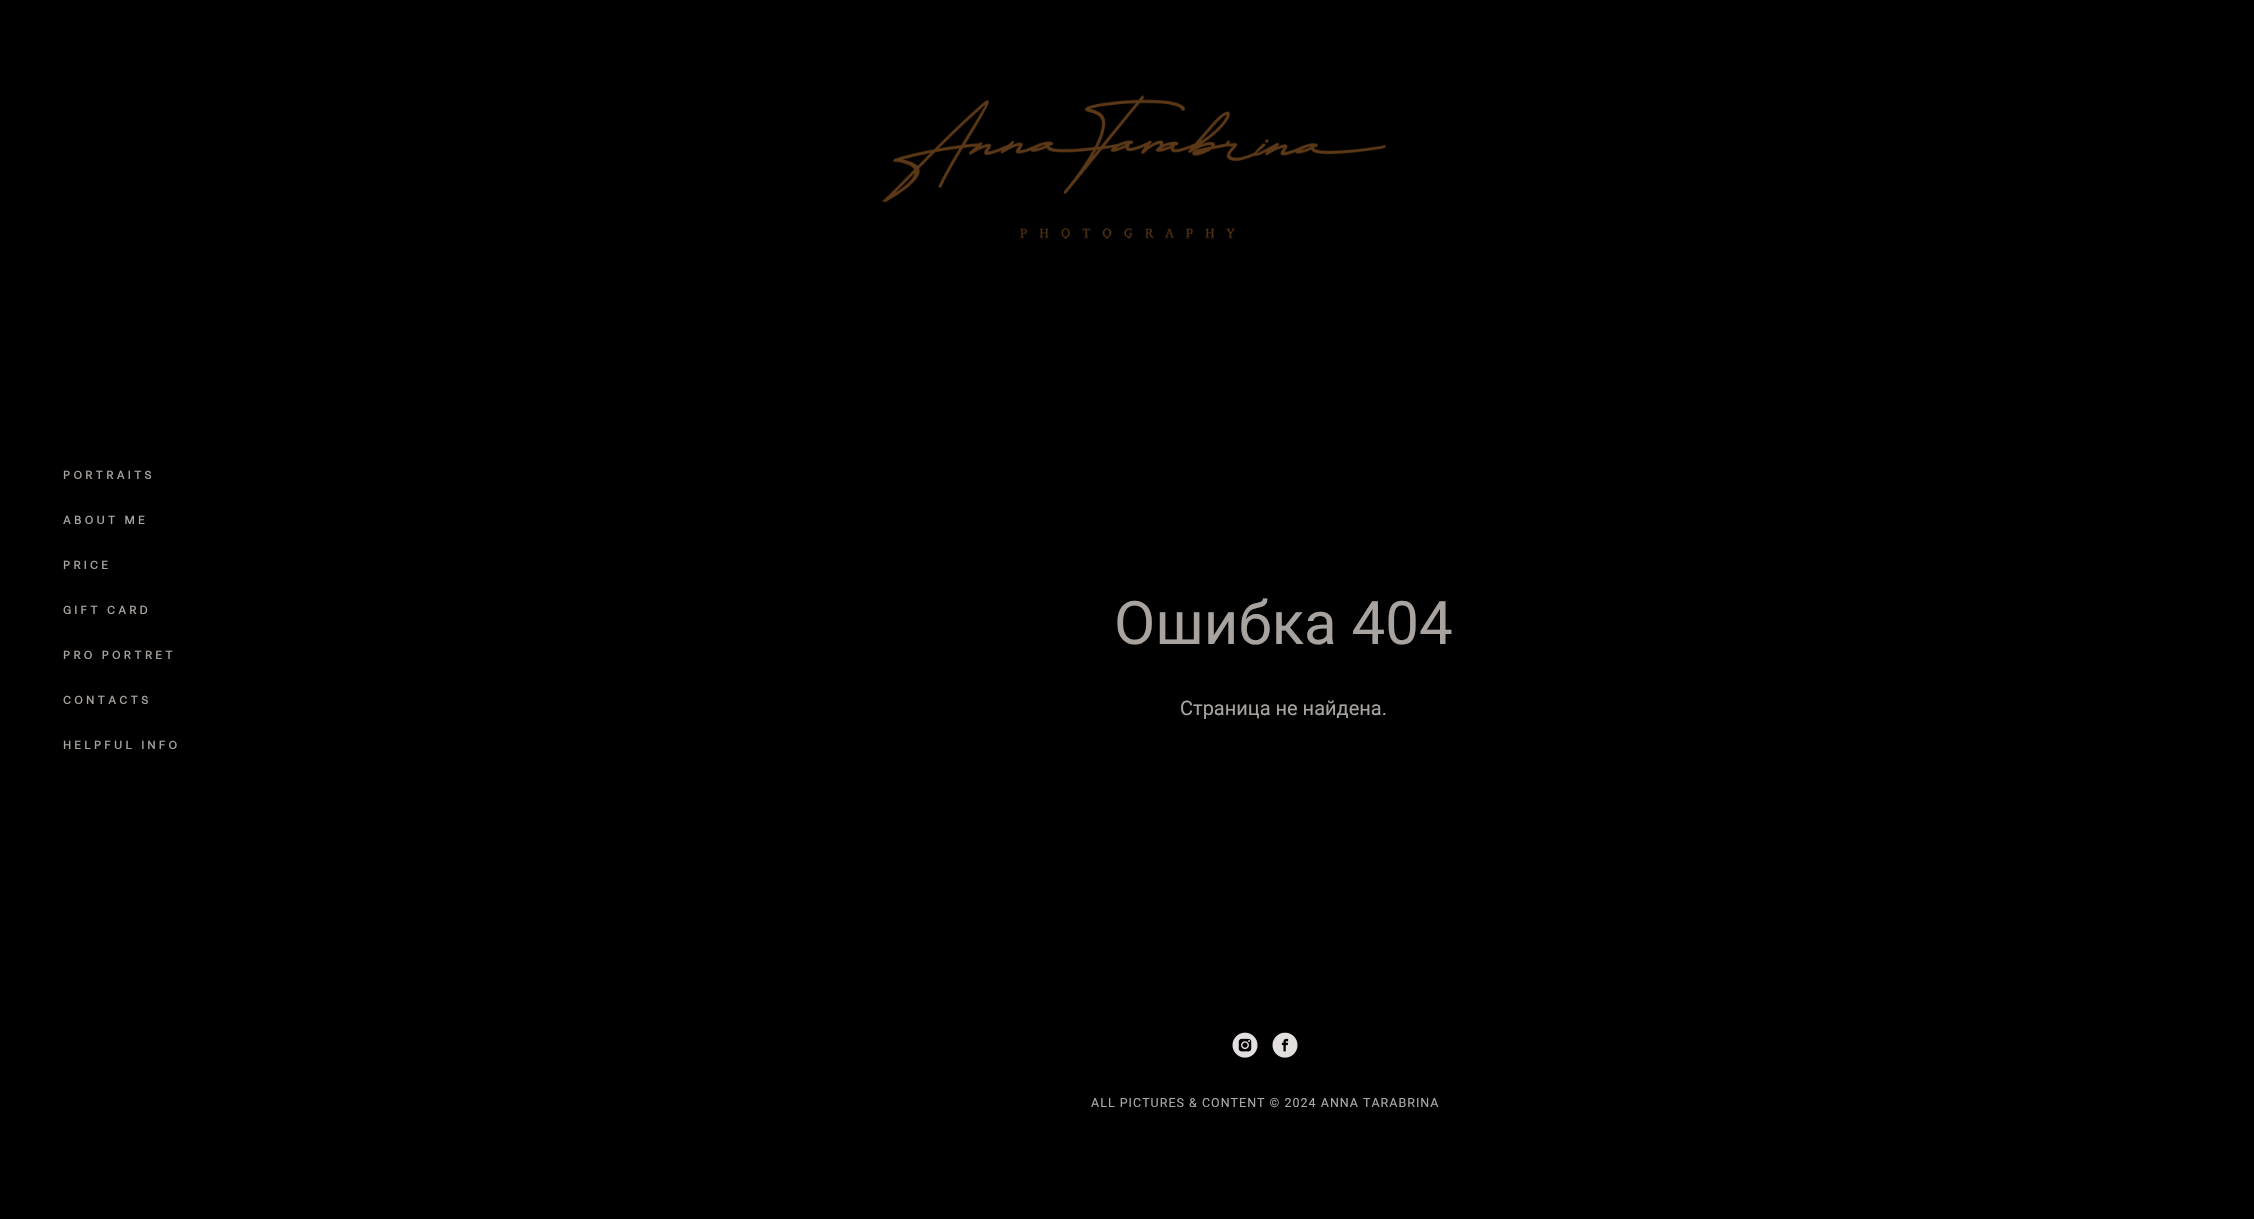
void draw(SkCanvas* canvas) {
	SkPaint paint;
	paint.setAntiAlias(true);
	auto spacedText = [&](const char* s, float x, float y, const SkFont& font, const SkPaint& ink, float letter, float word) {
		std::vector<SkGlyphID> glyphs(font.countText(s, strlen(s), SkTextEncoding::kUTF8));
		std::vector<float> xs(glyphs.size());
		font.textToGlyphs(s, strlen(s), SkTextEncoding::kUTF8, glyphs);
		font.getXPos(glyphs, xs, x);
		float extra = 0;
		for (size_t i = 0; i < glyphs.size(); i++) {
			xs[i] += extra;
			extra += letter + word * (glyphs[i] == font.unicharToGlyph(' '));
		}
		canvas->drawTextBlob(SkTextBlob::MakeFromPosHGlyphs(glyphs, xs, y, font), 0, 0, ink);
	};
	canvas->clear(0xff000000);
	canvas->drawImageRect(SkImages::DeferredFromEncodedData(SkData::MakeFromFileName("img1.png")), SkRect::MakeXYWH(882, 95, 504, 144), SkSamplingOptions());
	SkFont f1(fontMgr->matchFamilyStyle("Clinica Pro", SkFontStyle::Bold()), 11.25);
	f1.setSubpixel(true);
	paint.setColor(0xffa8a39f);
	spacedText("PORTRAITS", 63, 479, f1, paint, 3.4, 0);
	spacedText("ABOUT ME", 63, 524, f1, paint, 3.4, 0);
	spacedText("PRICE", 63, 569, f1, paint, 3.4, 0);
	spacedText("GIFT CARD", 63, 614, f1, paint, 3.4, 0);
	spacedText("PRO PORTRET", 63, 659, f1, paint, 3.4, 0);
	spacedText("CONTACTS", 63, 704, f1, paint, 3.4, 0);
	spacedText("HELPFUL INFO", 63, 749, f1, paint, 3.4, 0);
	SkFont f2(fontMgr->matchFamilyStyle("Roboto", SkFontStyle::Normal()), 60);
	f2.setSubpixel(true);
	canvas->drawString("Ошибка 404", 1114, 644, f2, paint);
	SkFont f3(fontMgr->matchFamilyStyle("Roboto", SkFontStyle::Normal()), 20);
	f3.setSubpixel(true);
	canvas->drawString("Страница не найдена.", 1180, 715, f3, paint);
	canvas->drawImageRect(SkImages::DeferredFromEncodedData(SkData::MakeFromFileName("img2.png")), SkRect::MakeXYWH(1232, 1032, 26, 26), SkSamplingOptions());
	canvas->drawImageRect(SkImages::DeferredFromEncodedData(SkData::MakeFromFileName("img3.png")), SkRect::MakeXYWH(1272, 1032, 26, 26), SkSamplingOptions());
	SkFont f4(fontMgr->matchFamilyStyle("Roboto", SkFontStyle::Normal()), 12.5);
	f4.setSubpixel(true);
	paint.setColor(0xffa9a9a9);
	spacedText("ALL PICTURES & CONTENT © 2024 ANNA TARABRINA", 1091, 1107, f4, paint, 1, 0);
}
